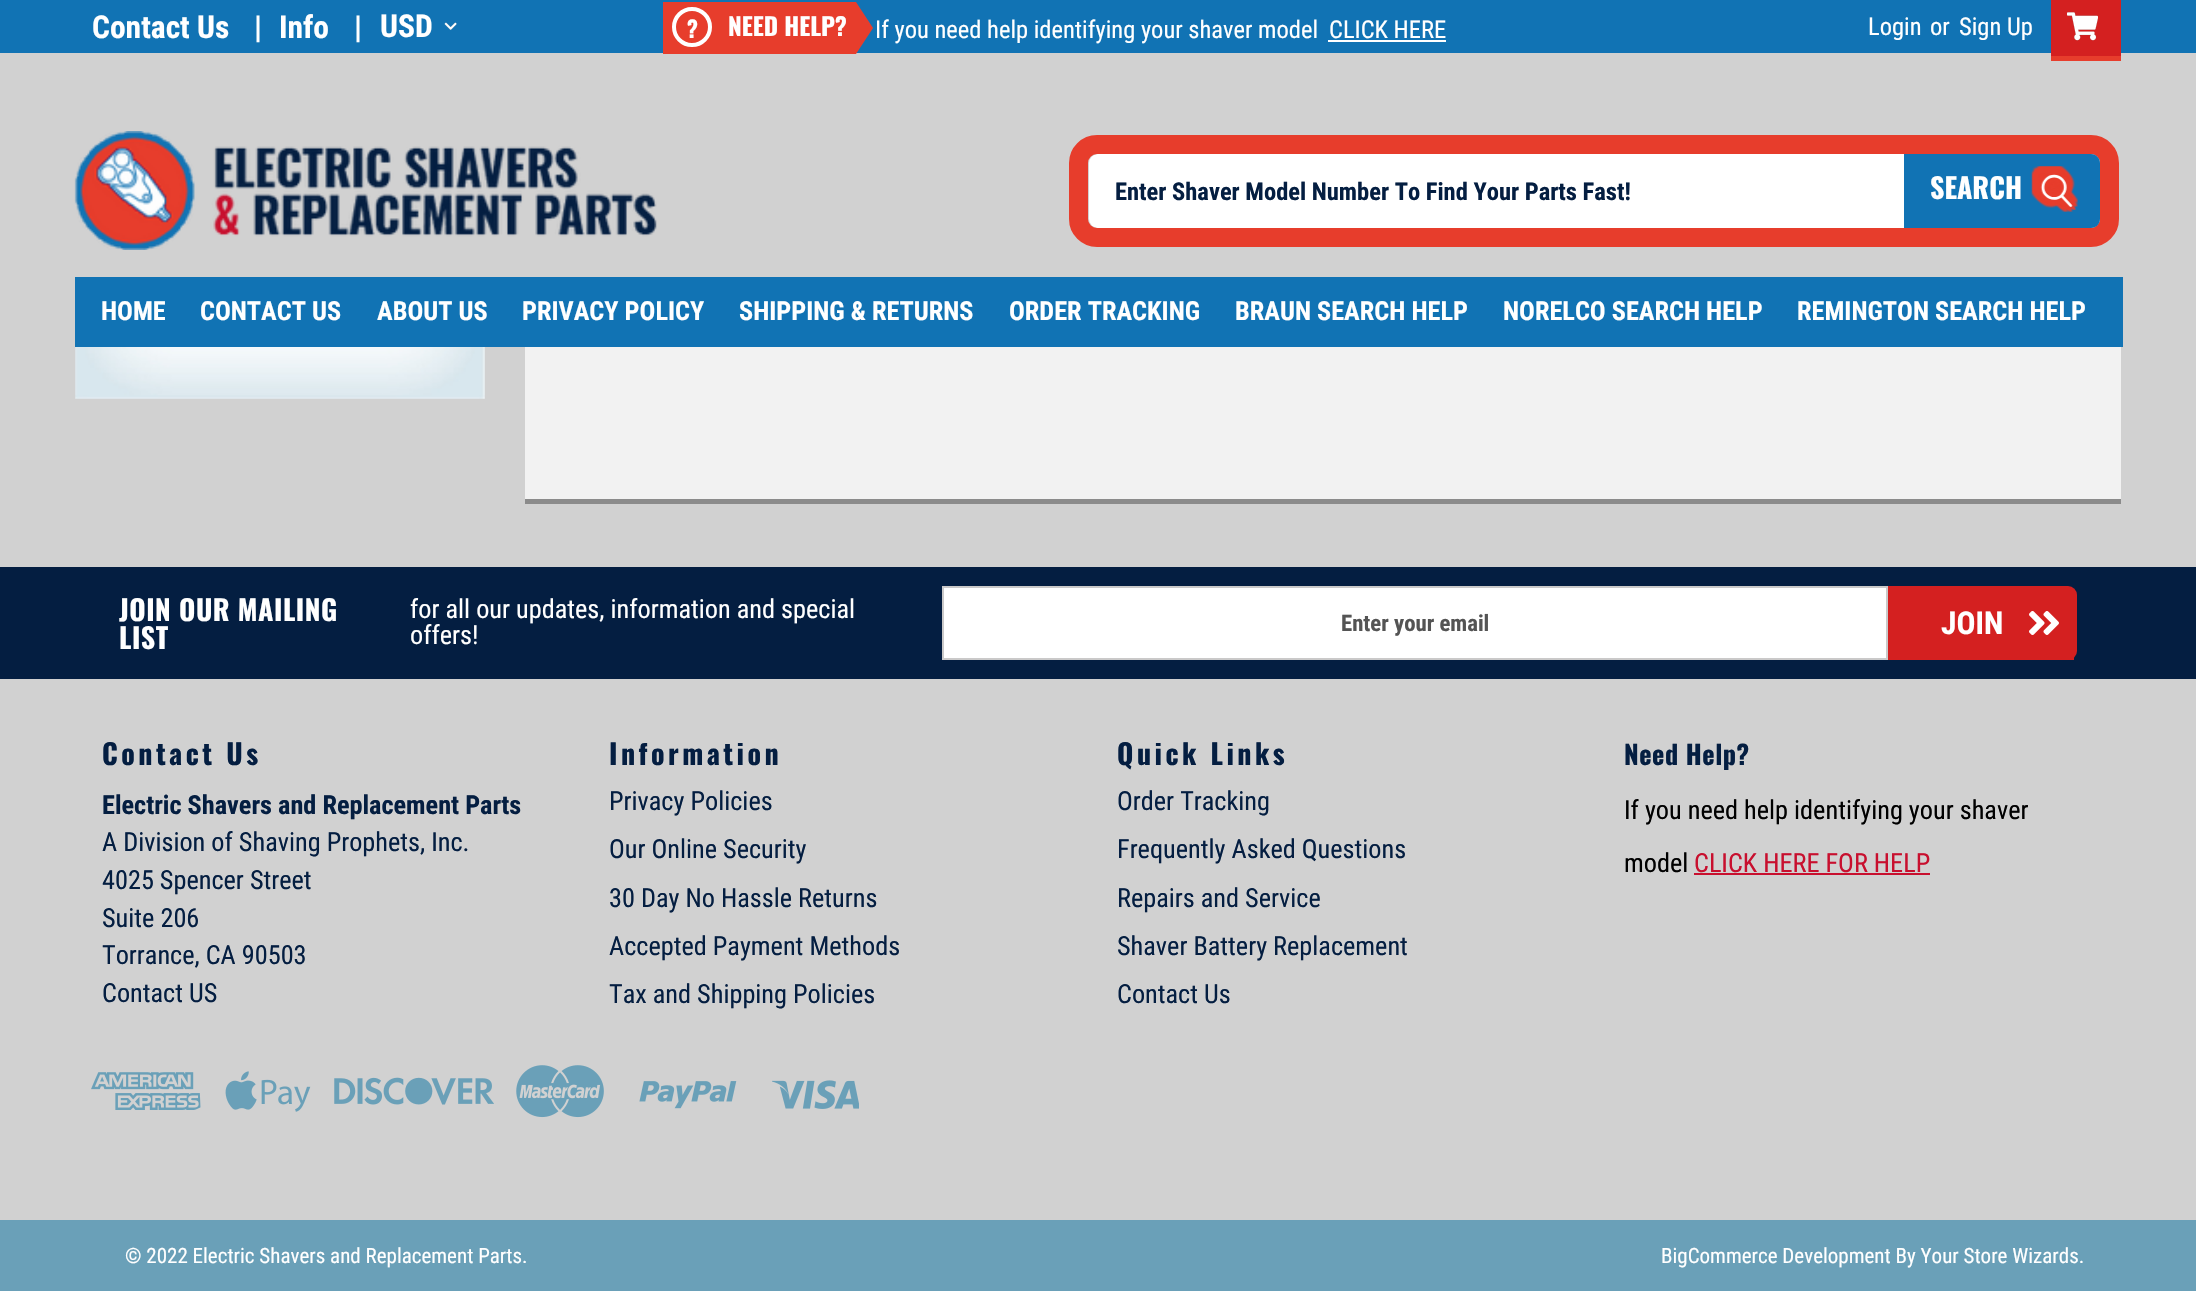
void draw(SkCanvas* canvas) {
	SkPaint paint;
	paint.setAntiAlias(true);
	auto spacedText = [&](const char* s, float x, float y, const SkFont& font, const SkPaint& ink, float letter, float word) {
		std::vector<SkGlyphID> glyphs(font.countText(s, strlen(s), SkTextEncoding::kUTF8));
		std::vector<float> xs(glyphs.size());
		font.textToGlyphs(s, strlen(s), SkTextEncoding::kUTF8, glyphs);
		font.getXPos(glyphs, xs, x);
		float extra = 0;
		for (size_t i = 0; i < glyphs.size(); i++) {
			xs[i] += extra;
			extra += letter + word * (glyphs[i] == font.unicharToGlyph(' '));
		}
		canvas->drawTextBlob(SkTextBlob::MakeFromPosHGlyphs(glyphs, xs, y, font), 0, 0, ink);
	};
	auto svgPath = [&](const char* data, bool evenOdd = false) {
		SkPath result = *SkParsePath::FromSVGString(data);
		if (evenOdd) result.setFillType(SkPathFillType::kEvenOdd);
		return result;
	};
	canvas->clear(0xffd1d1d1);
	paint.setColor(0xff1173b4);
	canvas->drawRect(SkRect::MakeXYWH(0, 0, 2196, 53), paint);
	SkFont f1(fontMgr->matchFamilyStyle("Roboto Condensed", SkFontStyle::Bold()), 31.5);
	f1.setSubpixel(true);
	paint.setColor(0xffffffff);
	canvas->drawString("Contact Us", 92, 38, f1, paint);
	canvas->drawString("|", 254, 38, f1, paint);
	canvas->drawString("Info", 279, 38, f1, paint);
	canvas->drawString("|", 354, 38, f1, paint);
	canvas->drawString("USD", 380, 37, f1, paint);
	canvas->drawImageRect(SkImages::DeferredFromEncodedData(SkData::MakeFromFileName("img1.png")), SkRect::MakeXYWH(444, 22, 13, 8), SkSamplingOptions());
	paint.setColor(0xffe73d2c);
	canvas->drawRect(SkRect::MakeXYWH(663, 2, 193, 52), paint);
	paint.setStroke(true);
	paint.setStrokeWidth(4);
	paint.setColor(0xffffffff);
	canvas->drawCircle(692, 27, 18, paint);
	SkFont f2(fontMgr->matchFamilyStyle("Oswald", SkFontStyle::Bold()), 22.75);
	f2.setSubpixel(true);
	paint.setStroke(false);
	canvas->drawString("?", 687, 38, f2, paint);
	SkFont f3(fontMgr->matchFamilyStyle("Oswald", SkFontStyle::Bold()), 24.5);
	f3.setSubpixel(true);
	canvas->drawString("NEED HELP?", 728, 36, f3, paint);
	paint.setColor(0xffe73d2c);
	canvas->drawPath(svgPath("M856 54V2L873 28Z"), paint);
	SkFont f4(fontMgr->matchFamilyStyle("Roboto Condensed", SkFontStyle::Normal()), 24.5);
	f4.setSubpixel(true);
	paint.setColor(0xffffffff);
	canvas->drawString("If you need help identifying your shaver model", 875, 38, f4, paint);
	canvas->drawString("CLICK HERE", 1329, 38, f4, paint);
	canvas->drawRect(SkRect::MakeXYWH(1328, 40, 118, 2), paint);
	canvas->drawString("Login", 1868, 35, f4, paint);
	canvas->drawString("or", 1930, 35, f4, paint);
	canvas->drawString("Sign Up", 1959, 35, f4, paint);
	paint.setColor(0xffd42020);
	canvas->drawRect(SkRect::MakeXYWH(2051, 0, 70, 56), paint);
	paint.setColor(0xffe73d2c);
	canvas->drawRect(SkRect::MakeXYWH(2051, 56, 70, 5), paint);
	canvas->drawImageRect(SkImages::DeferredFromEncodedData(SkData::MakeFromFileName("img2.png")), SkRect::MakeXYWH(2067, 12, 31, 29), SkSamplingOptions());
	canvas->drawImageRect(SkImages::DeferredFromEncodedData(SkData::MakeFromFileName("img3.png")), SkRect::MakeXYWH(74, 131, 583, 119), SkSamplingOptions());
	paint.setColor(0xffffffff);
	canvas->drawRoundRect(SkRect::MakeXYWH(1089, 154, 1011, 74), 9, 9, paint);
	paint.setStroke(true);
	paint.setStrokeWidth(19);
	paint.setColor(0xffe73d2c);
	canvas->drawRoundRect(SkRect::MakeXYWH(1078.5, 144.5, 1031, 93), 18.5, 18.5, paint);
	SkFont f5(fontMgr->matchFamilyStyle("Roboto Condensed", SkFontStyle::Bold()), 24.5);
	f5.setSubpixel(true);
	paint.setStroke(false);
	paint.setColor(0xff041e41);
	canvas->drawString("Enter Shaver Model Number To Find Your Parts Fast!", 1115, 200, f5, paint);
	paint.setColor(0xff1173b4);
	canvas->drawPath(svgPath("M1904 154H2091C2096 154 2100 158 2100 163V219C2100 224 2096 228 2091 228H1904Z"), paint);
	SkFont f6(fontMgr->matchFamilyStyle("Oswald", SkFontStyle::Bold()), 28);
	f6.setSubpixel(true);
	paint.setColor(0xffffffff);
	canvas->drawString("SEARCH", 1930, 199, f6, paint);
	canvas->drawImageRect(SkImages::DeferredFromEncodedData(SkData::MakeFromFileName("img4.png")), SkRect::MakeXYWH(2031, 166, 47, 46), SkSamplingOptions());
	paint.setColor(0xff1173b4);
	canvas->drawRect(SkRect::MakeXYWH(75, 277, 2048, 70), paint);
	SkFont f7(fontMgr->matchFamilyStyle("Roboto Condensed", SkFontStyle::Bold()), 26.25);
	f7.setSubpixel(true);
	paint.setColor(0xffffffff);
	canvas->drawString("HOME", 101, 320, f7, paint);
	canvas->drawString("CONTACT US", 200, 320, f7, paint);
	canvas->drawString("ABOUT US", 377, 320, f7, paint);
	canvas->drawString("PRIVACY POLICY", 522, 320, f7, paint);
	canvas->drawString("SHIPPING & RETURNS", 739, 320, f7, paint);
	canvas->drawString("ORDER TRACKING", 1009, 320, f7, paint);
	canvas->drawString("BRAUN SEARCH HELP", 1235, 320, f7, paint);
	canvas->drawString("NORELCO SEARCH HELP", 1503, 320, f7, paint);
	canvas->drawString("REMINGTON SEARCH HELP", 1797, 320, f7, paint);
	canvas->drawImageRect(SkImages::DeferredFromEncodedData(SkData::MakeFromFileName("img5.png")), SkRect::MakeXYWH(75, 347, 410, 52), SkSamplingOptions());
	paint.setColor(0xfff2f2f2);
	canvas->drawRect(SkRect::MakeXYWH(525, 347, 1596, 152), paint);
	paint.setColor(0xff8b8b8b);
	canvas->drawRect(SkRect::MakeXYWH(525, 499, 1596, 5), paint);
	paint.setColor(0xff041e41);
	canvas->drawRect(SkRect::MakeXYWH(0, 567, 2196, 112), paint);
	paint.setColor(0xffffffff);
	spacedText("JOIN OUR MAILING", 119, 621, f6, paint, 0.5, 0);
	spacedText("LIST", 119, 649, f6, paint, 0.5, 0);
	SkFont f8(fontMgr->matchFamilyStyle("Roboto Condensed", SkFontStyle::Normal()), 26.25);
	f8.setSubpixel(true);
	canvas->drawString("for all our updates, information and special", 410, 618, f8, paint);
	canvas->drawString("offers!", 410, 644, f8, paint);
	canvas->drawRect(SkRect::MakeXYWH(943, 587, 944, 72), paint);
	paint.setStroke(true);
	paint.setStrokeWidth(2);
	paint.setColor(0xffcac9c9);
	canvas->drawRect(SkRect::MakeXYWH(943, 587, 944, 72), paint);
	SkFont f9(fontMgr->matchFamilyStyle("Roboto Condensed", SkFontStyle::Bold()), 22.75);
	f9.setSubpixel(true);
	paint.setStroke(false);
	paint.setColor(0xff545454);
	canvas->drawString("Enter your email", 1341, 631, f9, paint);
	paint.setColor(0xffd42020);
	canvas->drawRoundRect(SkRect::MakeXYWH(1888, 586, 189, 74), 9, 9, paint);
	canvas->drawRect(SkRect::MakeXYWH(2068, 657, 6, 3), paint);
	canvas->drawRect(SkRect::MakeXYWH(1888, 586, 9, 74), paint);
	paint.setColor(0xffffffff);
	canvas->drawString("JOIN", 1941, 634, f1, paint);
	canvas->drawImageRect(SkImages::DeferredFromEncodedData(SkData::MakeFromFileName("img6.png")), SkRect::MakeXYWH(2029, 611, 30, 24), SkSamplingOptions());
	paint.setColor(0xff041e41);
	spacedText("Contact Us", 102, 765, f6, paint, 3.5, 0);
	canvas->drawString("Electric Shavers and Replacement Parts", 102, 814, f7, paint);
	canvas->drawString("A Division of Shaving Prophets, Inc.", 102, 851, f8, paint);
	canvas->drawString("4025 Spencer Street", 102, 889, f8, paint);
	canvas->drawString("Suite 206", 102, 927, f8, paint);
	canvas->drawString("Torrance, CA 90503", 102, 964, f8, paint);
	canvas->drawString("Contact US", 102, 1002, f8, paint);
	spacedText("Information", 609, 765, f6, paint, 3.5, 0);
	canvas->drawString("Privacy Policies", 609, 810, f8, paint);
	canvas->drawString("Our Online Security", 609, 858, f8, paint);
	canvas->drawString("30 Day No Hassle Returns", 609, 907, f8, paint);
	canvas->drawString("Accepted Payment Methods", 609, 955, f8, paint);
	canvas->drawString("Tax and Shipping Policies", 609, 1003, f8, paint);
	spacedText("Quick Links", 1117, 765, f6, paint, 3.5, 0);
	canvas->drawString("Order Tracking", 1117, 810, f8, paint);
	canvas->drawString("Frequently Asked Questions", 1117, 858, f8, paint);
	canvas->drawString("Repairs and Service", 1117, 907, f8, paint);
	canvas->drawString("Shaver Battery Replacement", 1117, 955, f8, paint);
	canvas->drawString("Contact Us", 1117, 1003, f8, paint);
	SkFont f10(fontMgr->matchFamilyStyle("Oswald", SkFontStyle::Bold()), 26.25);
	f10.setSubpixel(true);
	spacedText("Need Help?", 1624, 765, f10, paint, 0.5, 0);
	paint.setColor(0xff000000);
	canvas->drawString("If you need help identifying your shaver", 1624, 819, f8, paint);
	canvas->drawString("model", 1624, 872, f8, paint);
	paint.setColor(0xffc80f2e);
	canvas->drawString("CLICK HERE FOR HELP", 1694, 872, f8, paint);
	canvas->drawRect(SkRect::MakeXYWH(1694, 873, 236, 2), paint);
	canvas->drawImageRect(SkImages::DeferredFromEncodedData(SkData::MakeFromFileName("img7.png")), SkRect::MakeXYWH(91, 1072, 110, 38), SkSamplingOptions());
	canvas->drawImageRect(SkImages::DeferredFromEncodedData(SkData::MakeFromFileName("img8.png")), SkRect::MakeXYWH(225, 1071, 86, 41), SkSamplingOptions());
	canvas->drawImageRect(SkImages::DeferredFromEncodedData(SkData::MakeFromFileName("img9.png")), SkRect::MakeXYWH(334, 1077, 160, 28), SkSamplingOptions());
	canvas->drawImageRect(SkImages::DeferredFromEncodedData(SkData::MakeFromFileName("img10.png")), SkRect::MakeXYWH(516, 1065, 88, 53), SkSamplingOptions());
	canvas->drawImageRect(SkImages::DeferredFromEncodedData(SkData::MakeFromFileName("img11.png")), SkRect::MakeXYWH(639, 1081, 98, 28), SkSamplingOptions());
	canvas->drawImageRect(SkImages::DeferredFromEncodedData(SkData::MakeFromFileName("img12.png")), SkRect::MakeXYWH(772, 1080, 87, 29), SkSamplingOptions());
	paint.setColor(0xff6aa0b8);
	canvas->drawRect(SkRect::MakeXYWH(0, 1220, 2196, 71), paint);
	SkFont f11(fontMgr->matchFamilyStyle("Roboto Condensed", SkFontStyle::Normal()), 21);
	f11.setSubpixel(true);
	paint.setColor(0xffffffff);
	canvas->drawString("© 2022 Electric Shavers and Replacement Parts.", 125, 1263, f11, paint);
	canvas->drawString("BigCommerce Development By Your Store Wizards.", 1661, 1263, f11, paint);
}
